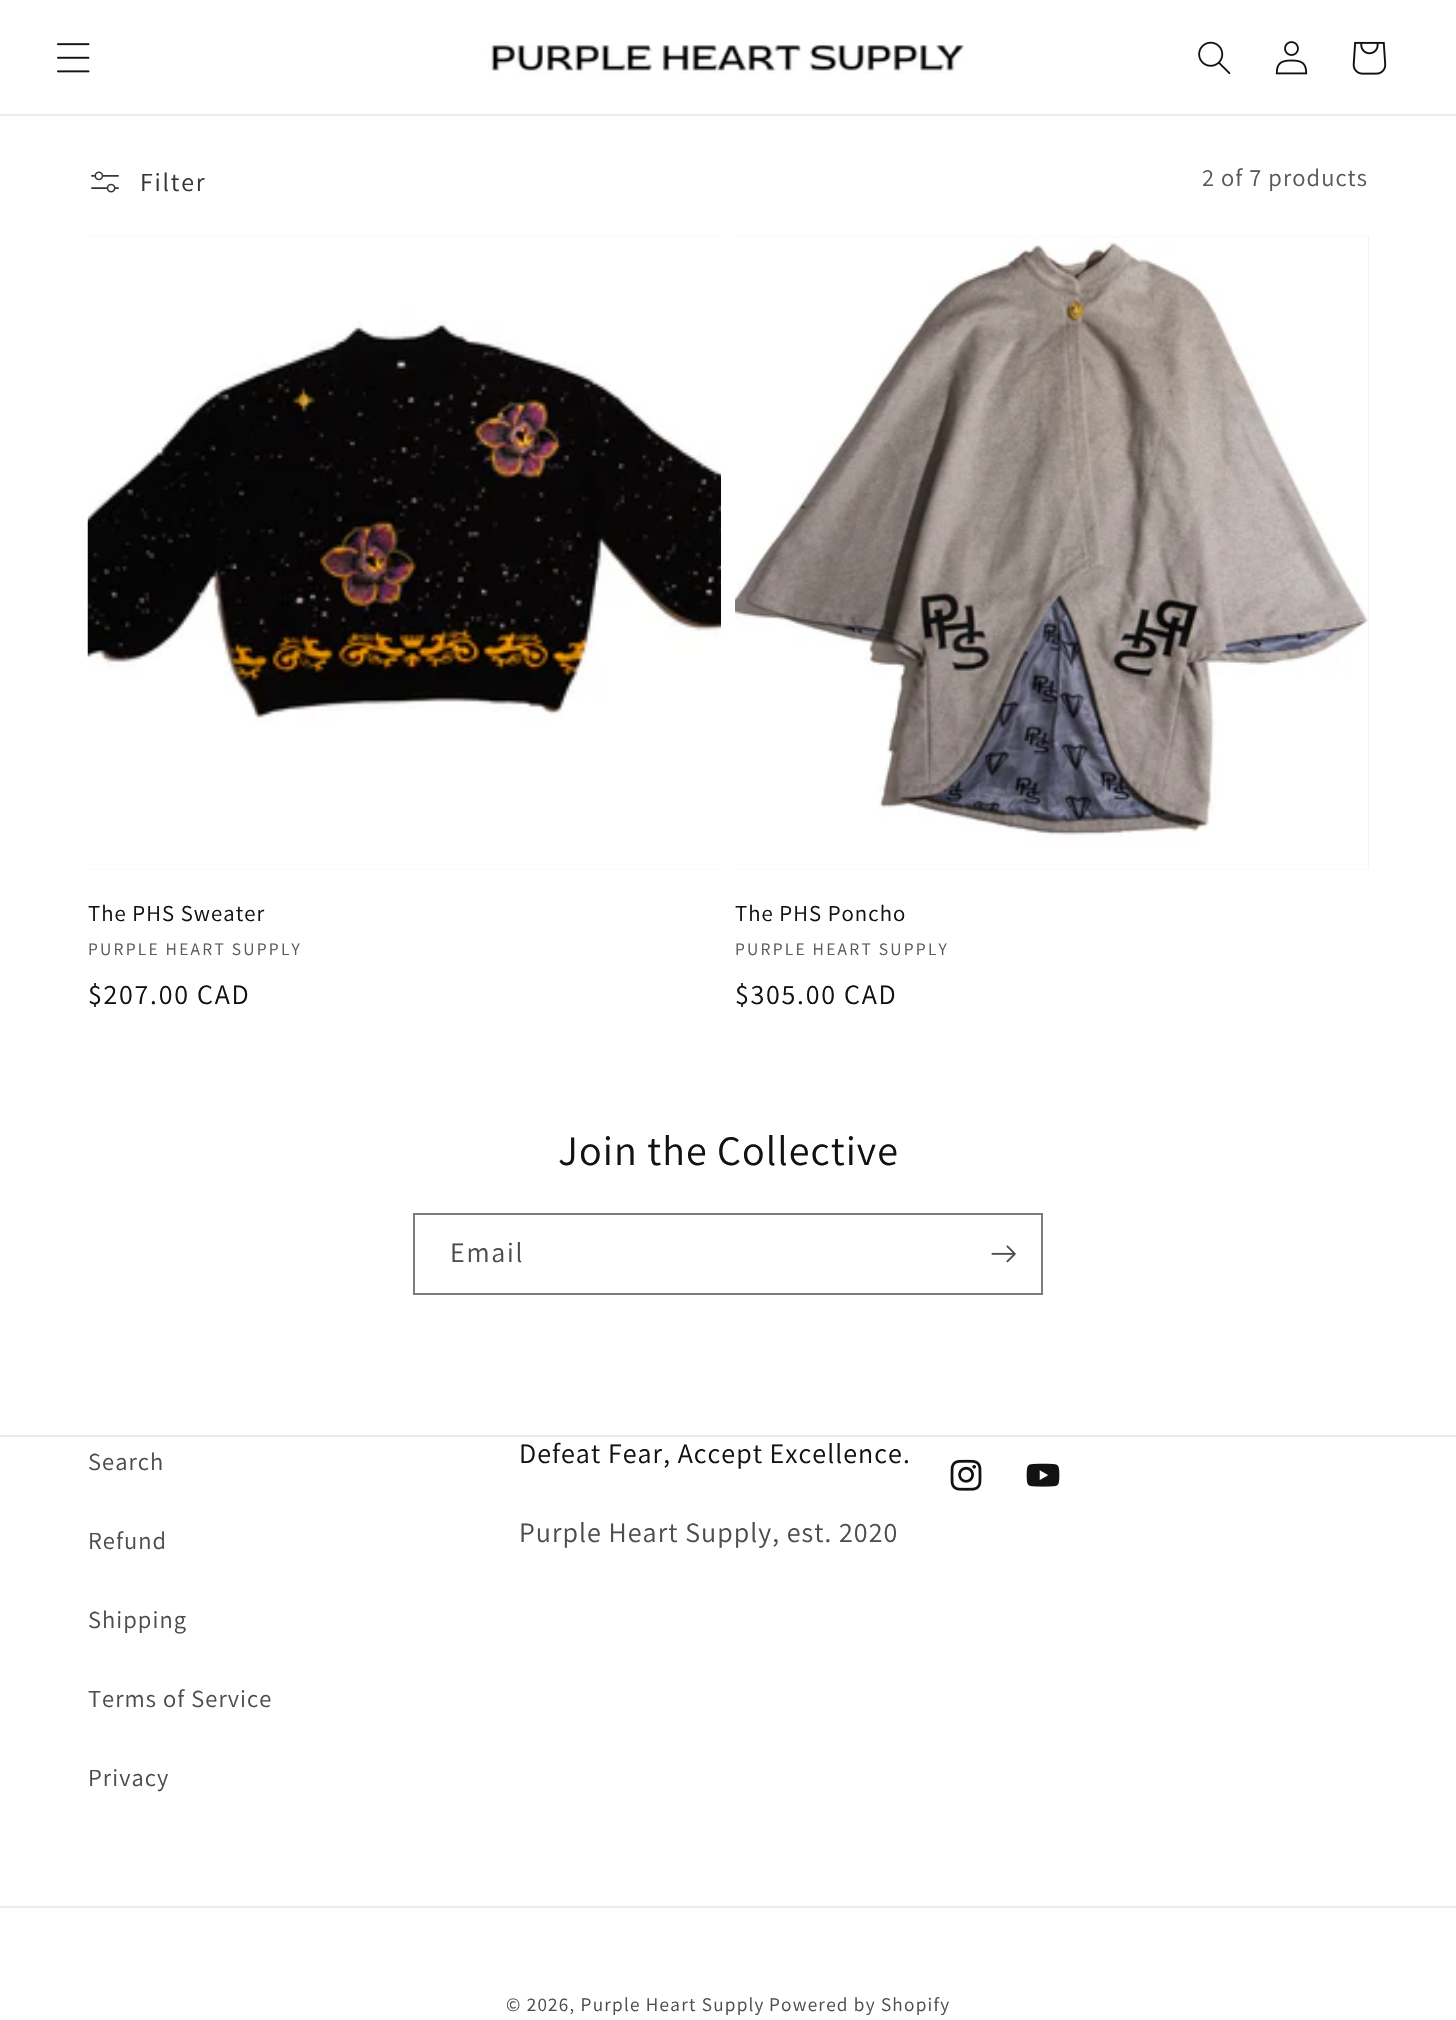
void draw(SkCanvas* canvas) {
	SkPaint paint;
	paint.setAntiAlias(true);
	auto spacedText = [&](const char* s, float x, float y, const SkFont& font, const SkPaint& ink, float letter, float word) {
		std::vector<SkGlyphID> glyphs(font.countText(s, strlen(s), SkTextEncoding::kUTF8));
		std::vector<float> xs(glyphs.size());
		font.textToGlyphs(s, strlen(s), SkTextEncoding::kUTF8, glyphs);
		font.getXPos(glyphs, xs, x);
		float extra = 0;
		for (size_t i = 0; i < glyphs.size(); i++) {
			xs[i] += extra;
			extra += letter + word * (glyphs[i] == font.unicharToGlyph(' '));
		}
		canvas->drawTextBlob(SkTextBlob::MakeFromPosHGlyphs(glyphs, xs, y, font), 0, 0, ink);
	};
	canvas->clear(0xffffffff);
	paint.setColor(0xffececec);
	canvas->drawRect(SkRect::MakeXYWH(0, 114, 1456, 2), paint);
	canvas->drawImageRect(SkImages::DeferredFromEncodedData(SkData::MakeFromFileName("img1.png")), SkRect::MakeXYWH(57, 43, 33, 30), SkSamplingOptions());
	canvas->drawImageRect(SkImages::DeferredFromEncodedData(SkData::MakeFromFileName("img2.png")), SkRect::MakeXYWH(487, 42, 478, 32), SkSamplingOptions());
	canvas->drawImageRect(SkImages::DeferredFromEncodedData(SkData::MakeFromFileName("img3.png")), SkRect::MakeXYWH(1198, 41, 33, 34), SkSamplingOptions());
	canvas->drawImageRect(SkImages::DeferredFromEncodedData(SkData::MakeFromFileName("img4.png")), SkRect::MakeXYWH(1275, 41, 33, 34), SkSamplingOptions());
	canvas->drawImageRect(SkImages::DeferredFromEncodedData(SkData::MakeFromFileName("img5.png")), SkRect::MakeXYWH(1352, 41, 35, 34), SkSamplingOptions());
	canvas->drawImageRect(SkImages::DeferredFromEncodedData(SkData::MakeFromFileName("img6.png")), SkRect::MakeXYWH(91, 171, 28, 22), SkSamplingOptions());
	SkFont f1(fontMgr->matchFamilyStyle("Assistant", SkFontStyle::Normal()), 26);
	f1.setSubpixel(true);
	paint.setColor(0xff363636);
	spacedText("Filter", 140, 191, f1, paint, 1.75, 0);
	SkFont f2(fontMgr->matchFamilyStyle("Assistant", SkFontStyle::Normal()), 24.5);
	f2.setSubpixel(true);
	paint.setColor(0xff595959);
	spacedText("2 of 7 products", 1202, 186, f2, paint, 1.05, 0);
	paint.setColor(0xfff3f3f3);
	canvas->drawRect(SkRect::MakeXYWH(88, 236, 633, 634), paint);
	canvas->drawImageRect(SkImages::DeferredFromEncodedData(SkData::MakeFromFileName("img7.png")), SkRect::MakeXYWH(87, 236, 634, 634), SkSamplingOptions());
	SkFont f3(fontMgr->matchFamilyStyle("Assistant", SkFontStyle::Normal()), 22.75);
	f3.setSubpixel(true);
	paint.setColor(0xff121212);
	spacedText("The PHS Sweater", 88, 921, f3, paint, 1.05, 0);
	SkFont f4(fontMgr->matchFamilyStyle("Assistant", SkFontStyle::Normal()), 17.5);
	f4.setSubpixel(true);
	paint.setColor(0xff595959);
	spacedText("PURPLE HEART SUPPLY", 88, 955, f4, paint, 2.25, 0);
	SkFont f5(fontMgr->matchFamilyStyle("Assistant", SkFontStyle::Normal()), 28);
	f5.setSubpixel(true);
	paint.setColor(0xff121212);
	spacedText("$207.00 CAD", 88, 1004, f5, paint, 1.75, 0);
	paint.setColor(0xfff3f3f3);
	canvas->drawRect(SkRect::MakeXYWH(735, 236, 634, 634), paint);
	canvas->drawImageRect(SkImages::DeferredFromEncodedData(SkData::MakeFromFileName("img8.png")), SkRect::MakeXYWH(735, 236, 633, 634), SkSamplingOptions());
	paint.setColor(0xff121212);
	spacedText("The PHS Poncho", 735, 921, f3, paint, 1.05, 0);
	paint.setColor(0xff595959);
	spacedText("PURPLE HEART SUPPLY", 735, 955, f4, paint, 2.25, 0);
	paint.setColor(0xff121212);
	spacedText("$305.00 CAD", 735, 1004, f5, paint, 1.75, 0);
	SkFont f6(fontMgr->matchFamilyStyle("Assistant", SkFontStyle::Normal()), 42);
	f6.setSubpixel(true);
	spacedText("Join the Collective", 558, 1165, f6, paint, 1.05, 0);
	paint.setStroke(true);
	paint.setStrokeWidth(2);
	paint.setColor(0xff7d7d7d);
	canvas->drawRect(SkRect::MakeXYWH(414, 1214, 628, 80), paint);
	paint.setStroke(false);
	paint.setColor(0xff4d4d4d);
	spacedText("Email", 450, 1262, f5, paint, 1.75, 0);
	canvas->drawImageRect(SkImages::DeferredFromEncodedData(SkData::MakeFromFileName("img9.png")), SkRect::MakeXYWH(991, 1245, 25, 18), SkSamplingOptions());
	paint.setColor(0xffececec);
	canvas->drawRect(SkRect::MakeXYWH(0, 1435, 1456, 2), paint);
	paint.setColor(0xff4d4d4d);
	spacedText("Search", 88, 1470, f2, paint, 1.05, 0);
	spacedText("Refund", 88, 1549, f2, paint, 1.05, 0);
	spacedText("Shipping", 88, 1628, f2, paint, 1.05, 0);
	spacedText("Terms of Service", 88, 1707, f2, paint, 1.05, 0);
	spacedText("Privacy", 88, 1786, f2, paint, 1.05, 0);
	paint.setColor(0xff121212);
	spacedText("Defeat Fear, Accept Excellence.", 519, 1463, f5, paint, 1.05, 0);
	paint.setColor(0xff4d4d4d);
	spacedText("Purple Heart Supply, est. 2020", 519, 1542, f5, paint, 1.05, 0);
	canvas->drawImageRect(SkImages::DeferredFromEncodedData(SkData::MakeFromFileName("img10.png")), SkRect::MakeXYWH(950, 1459, 32, 32), SkSamplingOptions());
	canvas->drawImageRect(SkImages::DeferredFromEncodedData(SkData::MakeFromFileName("img11.png")), SkRect::MakeXYWH(1026, 1463, 34, 24), SkSamplingOptions());
	paint.setColor(0xffececec);
	canvas->drawRect(SkRect::MakeXYWH(0, 1906, 1456, 2), paint);
	SkFont f7(fontMgr->matchFamilyStyle("Assistant", SkFontStyle::Normal()), 19.25);
	f7.setSubpixel(true);
	paint.setColor(0xff4d4d4d);
	spacedText("© 2026, Purple Heart Supply", 506, 2011, f7, paint, 1.25, 0);
	spacedText("Powered by Shopify", 769, 2011, f7, paint, 1.25, 0);
}
